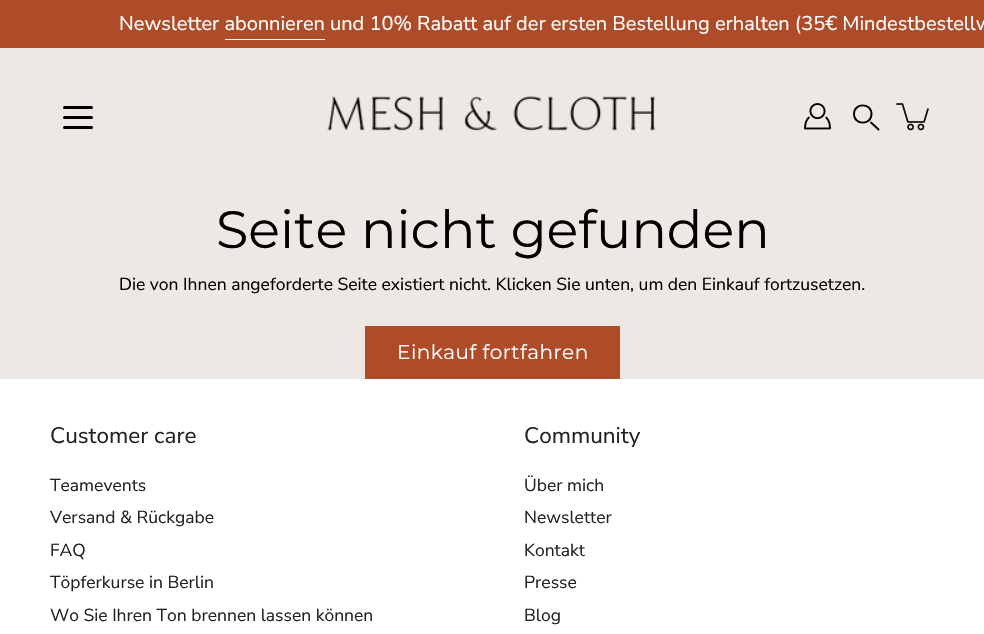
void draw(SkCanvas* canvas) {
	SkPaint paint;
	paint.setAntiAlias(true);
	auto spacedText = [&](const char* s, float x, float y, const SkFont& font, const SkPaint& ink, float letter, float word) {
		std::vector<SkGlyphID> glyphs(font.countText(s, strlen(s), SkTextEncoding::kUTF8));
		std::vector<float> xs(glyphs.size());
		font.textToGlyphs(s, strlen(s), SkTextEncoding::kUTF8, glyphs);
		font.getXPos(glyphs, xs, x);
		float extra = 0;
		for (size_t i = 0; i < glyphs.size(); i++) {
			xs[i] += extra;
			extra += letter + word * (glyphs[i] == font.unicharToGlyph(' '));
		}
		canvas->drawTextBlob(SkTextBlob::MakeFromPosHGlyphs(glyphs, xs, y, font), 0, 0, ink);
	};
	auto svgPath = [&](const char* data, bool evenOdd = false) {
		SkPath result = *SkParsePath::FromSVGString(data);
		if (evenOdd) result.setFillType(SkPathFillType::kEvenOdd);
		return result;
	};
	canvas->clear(0xffede8e4);
	paint.setColor(0xffae4c29);
	canvas->drawRect(SkRect::MakeXYWH(0, 0, 984, 48), paint);
	SkFont f1(fontMgr->matchFamilyStyle("Nunito Sans", SkFontStyle::Normal()), 20);
	f1.setSubpixel(true);
	paint.setColor(0xffffffff);
	canvas->drawString("Newsletter abonnieren", 119, 30, f1, paint);
	canvas->drawString("und 10% Rabatt auf der ersten Bestellung erhalten (35€ Mindestbestellw", 330, 30, f1, paint);
	canvas->drawRect(SkRect::MakeXYWH(225, 39, 100, 1), paint);
	canvas->drawImageRect(SkImages::DeferredFromEncodedData(SkData::MakeFromFileName("img1.png")), SkRect::MakeXYWH(327, 96, 329, 35), SkSamplingOptions());
	paint.setColor(0xff000000);
	canvas->drawRoundRect(SkRect::MakeXYWH(63, 116, 30, 3), 1.5, 1.5, paint);
	canvas->drawRoundRect(SkRect::MakeXYWH(63, 106, 30, 3), 1.5, 1.5, paint);
	canvas->drawRoundRect(SkRect::MakeXYWH(63, 126, 30, 3), 1.5, 1.5, paint);
	canvas->drawImageRect(SkImages::DeferredFromEncodedData(SkData::MakeFromFileName("img2.png")), SkRect::MakeXYWH(804, 103, 27, 27), SkSamplingOptions());
	paint.setStroke(true);
	paint.setStrokeWidth(1.9);
	canvas->drawPath(svgPath("M871.5 114C871.5 125.5 854 125.5 854 114C854 102.5 871.5 102.5 871.5 114Z"), paint);
	paint.setStrokeCap(SkPaint::kRound_Cap);
	canvas->drawPath(svgPath("M871 122.5L878.5 129.5"), paint);
	canvas->drawImageRect(SkImages::DeferredFromEncodedData(SkData::MakeFromFileName("img3.png")), SkRect::MakeXYWH(896, 103, 33, 28), SkSamplingOptions());
	SkFont f2(fontMgr->matchFamilyStyle("Montserrat", SkFontStyle::Normal()), 52.5);
	f2.setSubpixel(true);
	paint.setStroke(false);
	canvas->drawString("Seite nicht gefunden", 216, 248, f2, paint);
	SkFont f3(fontMgr->matchFamilyStyle("Nunito Sans", SkFontStyle::Normal()), 17.5);
	f3.setSubpixel(true);
	canvas->drawString("Die von Ihnen angeforderte Seite existiert nicht. Klicken Sie unten, um den Einkauf fortzusetzen.", 119, 290, f3, paint);
	paint.setColor(0xffae4c29);
	canvas->drawRect(SkRect::MakeXYWH(365, 326, 255, 53), paint);
	SkFont f4(fontMgr->matchFamilyStyle("Montserrat", SkFontStyle::Normal()), 20);
	f4.setSubpixel(true);
	paint.setColor(0xffffffff);
	spacedText("Einkauf fortfahren", 397, 359, f4, paint, 0.5, 0);
	canvas->drawRect(SkRect::MakeXYWH(0, 379, 984, 255), paint);
	SkFont f5(fontMgr->matchFamilyStyle("Nunito Sans", SkFontStyle::Normal()), 22.5);
	f5.setSubpixel(true);
	paint.setColor(0xff222222);
	canvas->drawString("Customer care", 50, 443, f5, paint);
	canvas->drawString("Teamevents", 50, 491, f3, paint);
	canvas->drawString("Versand & Rückgabe", 50, 523, f3, paint);
	canvas->drawString("FAQ", 50, 556, f3, paint);
	canvas->drawString("Töpferkurse in Berlin", 50, 588, f3, paint);
	canvas->drawString("Wo Sie Ihren Ton brennen lassen können", 50, 621, f3, paint);
	canvas->drawString("Community", 524, 443, f5, paint);
	canvas->drawString("Über mich", 524, 491, f3, paint);
	canvas->drawString("Newsletter", 524, 523, f3, paint);
	canvas->drawString("Kontakt", 524, 556, f3, paint);
	canvas->drawString("Presse", 524, 588, f3, paint);
	canvas->drawString("Blog", 524, 621, f3, paint);
}
